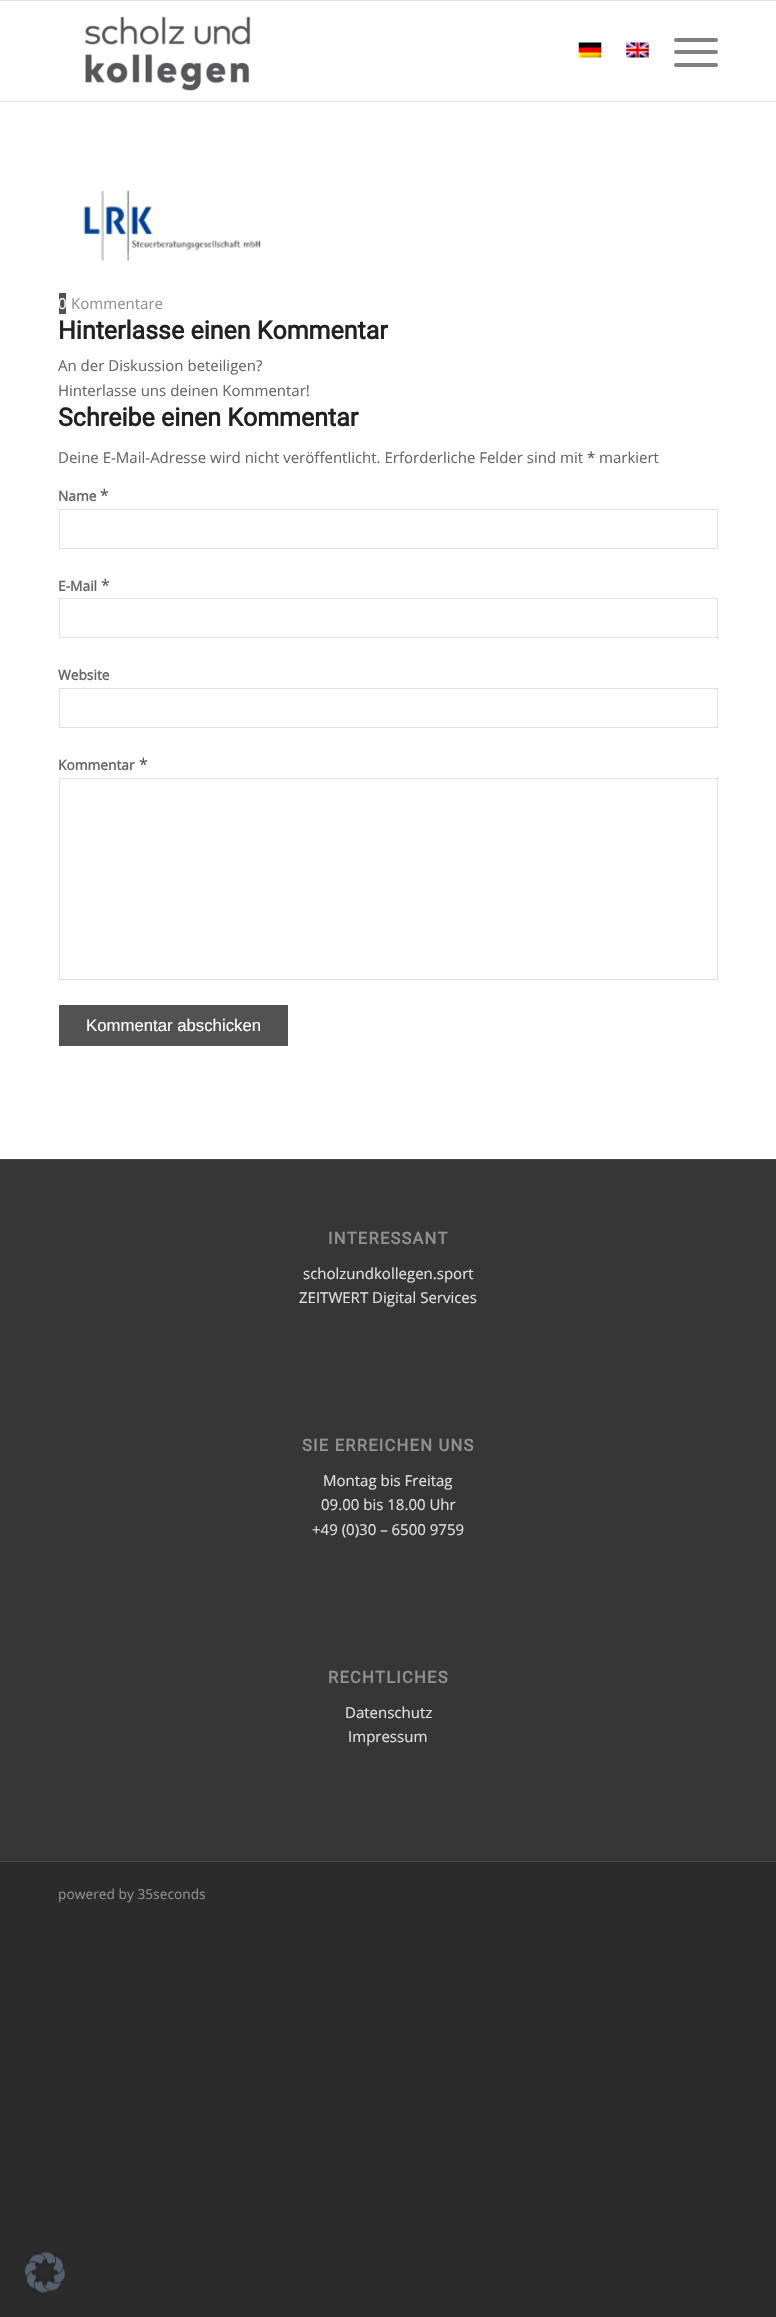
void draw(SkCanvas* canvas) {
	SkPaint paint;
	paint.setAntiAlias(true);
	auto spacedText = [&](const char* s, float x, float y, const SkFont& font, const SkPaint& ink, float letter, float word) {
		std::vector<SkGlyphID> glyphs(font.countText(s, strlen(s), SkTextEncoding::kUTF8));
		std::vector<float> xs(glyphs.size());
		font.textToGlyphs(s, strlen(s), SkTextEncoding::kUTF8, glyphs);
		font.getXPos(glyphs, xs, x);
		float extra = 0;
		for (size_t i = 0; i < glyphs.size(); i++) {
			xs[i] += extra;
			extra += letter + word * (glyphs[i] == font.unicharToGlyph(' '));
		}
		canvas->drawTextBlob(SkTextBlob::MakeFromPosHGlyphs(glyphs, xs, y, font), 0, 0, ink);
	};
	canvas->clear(0xff2b2b2b);
	paint.setColor(0xffe1e1e1);
	canvas->drawRect(SkRect::MakeXYWH(0, 0, 776, 1), paint);
	paint.setColor(0xffffffff);
	canvas->drawRect(SkRect::MakeXYWH(0, 1, 776, 1158), paint);
	paint.setColor(0xffe1e1e1);
	canvas->drawRect(SkRect::MakeXYWH(0, 101, 776, 1), paint);
	canvas->drawImageRect(SkImages::DeferredFromEncodedData(SkData::MakeFromFileName("img1.png")), SkRect::MakeXYWH(84, 16, 167, 75), SkSamplingOptions());
	canvas->drawImageRect(SkImages::DeferredFromEncodedData(SkData::MakeFromFileName("img2.png")), SkRect::MakeXYWH(578, 42, 24, 16), SkSamplingOptions());
	canvas->drawImageRect(SkImages::DeferredFromEncodedData(SkData::MakeFromFileName("img3.png")), SkRect::MakeXYWH(626, 42, 23, 16), SkSamplingOptions());
	paint.setColor(0xff808080);
	canvas->drawRoundRect(SkRect::MakeXYWH(674, 50, 44, 4), 2, 2, paint);
	canvas->drawRoundRect(SkRect::MakeXYWH(674, 38, 44, 4), 2, 2, paint);
	canvas->drawRoundRect(SkRect::MakeXYWH(674, 63, 44, 4), 2, 2, paint);
	canvas->drawImageRect(SkImages::DeferredFromEncodedData(SkData::MakeFromFileName("img4.png")), SkRect::MakeXYWH(83, 190, 179, 72), SkSamplingOptions());
	paint.setColor(0xff525252);
	canvas->drawRect(SkRect::MakeXYWH(59, 293, 7, 21), paint);
	SkFont f1(fontMgr->matchFamilyStyle("Open Sans", SkFontStyle::Normal()), 15);
	f1.setSubpixel(true);
	paint.setColor(0xffffffff);
	canvas->drawString("0", 58, 309, f1, paint);
	paint.setColor(0xff919191);
	canvas->drawString("Kommentare", 71, 309, f1, paint);
	SkFont f2(fontMgr->matchFamilyStyle("Roboto", SkFontStyle::Bold()), 25);
	f2.setSubpixel(true);
	paint.setColor(0xff222222);
	canvas->drawString("Hinterlasse einen Kommentar", 58, 339, f2, paint);
	paint.setColor(0xff666666);
	canvas->drawString("An der Diskussion beteiligen?", 58, 371, f1, paint);
	canvas->drawString("Hinterlasse uns deinen Kommentar!", 58, 396, f1, paint);
	paint.setColor(0xff222222);
	canvas->drawString("Schreibe einen Kommentar", 58, 426, f2, paint);
	paint.setColor(0xff666666);
	canvas->drawString("Deine E-Mail-Adresse wird nicht veröffentlicht. Erforderliche Felder sind mit", 58, 463, f1, paint);
	paint.setColor(0xff525252);
	canvas->drawString("*", 587, 463, f1, paint);
	paint.setColor(0xff666666);
	canvas->drawString("markiert", 599, 463, f1, paint);
	SkFont f3(fontMgr->matchFamilyStyle("Open Sans", SkFontStyle::Bold()), 13.75);
	f3.setSubpixel(true);
	canvas->drawString("Name", 58, 501, f3, paint);
	SkFont f4(fontMgr->matchFamilyStyle("Open Sans", SkFontStyle::Normal()), 16);
	f4.setSubpixel(true);
	paint.setColor(0xff525252);
	canvas->drawString("*", 100, 501, f4, paint);
	paint.setStroke(true);
	paint.setStrokeWidth(1);
	paint.setColor(0xffe1e1e1);
	canvas->drawRect(SkRect::MakeXYWH(59.5, 509.5, 658, 39), paint);
	paint.setStroke(false);
	paint.setColor(0xff666666);
	canvas->drawString("E-Mail", 58, 591, f3, paint);
	paint.setColor(0xff525252);
	canvas->drawString("*", 101, 591, f4, paint);
	paint.setStroke(true);
	paint.setColor(0xffe1e1e1);
	canvas->drawRect(SkRect::MakeXYWH(59.5, 598.5, 658, 39), paint);
	paint.setStroke(false);
	paint.setColor(0xff666666);
	canvas->drawString("Website", 58, 680, f3, paint);
	paint.setStroke(true);
	paint.setColor(0xffe1e1e1);
	canvas->drawRect(SkRect::MakeXYWH(59.5, 688.5, 658, 39), paint);
	paint.setStroke(false);
	paint.setColor(0xff666666);
	canvas->drawString("Kommentar", 58, 770, f3, paint);
	paint.setColor(0xff525252);
	canvas->drawString("*", 139, 770, f4, paint);
	paint.setStroke(true);
	paint.setColor(0xffe1e1e1);
	canvas->drawRect(SkRect::MakeXYWH(59.5, 778.5, 658, 201), paint);
	paint.setStroke(false);
	paint.setColor(0xff525252);
	canvas->drawRect(SkRect::MakeXYWH(59, 1005, 229, 41), paint);
	SkFont f5(fontMgr->matchFamilyStyle("Liberation Sans", SkFontStyle::Normal()), 16.75);
	f5.setSubpixel(true);
	paint.setColor(0xffffffff);
	canvas->drawString("Kommentar abschicken", 86, 1031, f5, paint);
	paint.setColor(0xff363636);
	canvas->drawRect(SkRect::MakeXYWH(0, 1160, 776, 701), paint);
	paint.setColor(0xff444444);
	canvas->drawRect(SkRect::MakeXYWH(0, 1159, 776, 1), paint);
	SkFont f6(fontMgr->matchFamilyStyle("Roboto", SkFontStyle::Bold()), 16.5);
	f6.setSubpixel(true);
	paint.setColor(0xff919191);
	spacedText("INTERESSANT", 328, 1244, f6, paint, 1.25, 0);
	paint.setColor(0xffe1e1e1);
	canvas->drawString("scholzundkollegen.sport", 303, 1279, f1, paint);
	canvas->drawString("ZEITWERT Digital Services", 299, 1303, f1, paint);
	paint.setColor(0xff919191);
	spacedText("SIE ERREICHEN UNS", 302, 1451, f6, paint, 1.25, 0);
	paint.setColor(0xffe1e1e1);
	canvas->drawString("Montag bis Freitag", 323, 1486, f1, paint);
	canvas->drawString("09.00 bis 18.00 Uhr", 321, 1510, f1, paint);
	canvas->drawString("+49 (0)30 – 6500 9759", 312, 1535, f1, paint);
	paint.setColor(0xff919191);
	spacedText("RECHTLICHES", 328, 1683, f6, paint, 1.25, 0);
	paint.setColor(0xffe1e1e1);
	canvas->drawString("Datenschutz", 345, 1718, f1, paint);
	canvas->drawString("Impressum", 348, 1742, f1, paint);
	paint.setColor(0xff444444);
	canvas->drawRect(SkRect::MakeXYWH(0, 1861, 776, 1), paint);
	SkFont f7(fontMgr->matchFamilyStyle("Open Sans", SkFontStyle::Normal()), 13.75);
	f7.setSubpixel(true);
	paint.setColor(0xff919191);
	canvas->drawString("powered by 35seconds", 58, 1899, f7, paint);
	canvas->drawImageRect(SkImages::DeferredFromEncodedData(SkData::MakeFromFileName("img5.png")), SkRect::MakeXYWH(25, 2252, 40, 41), SkSamplingOptions());
}
